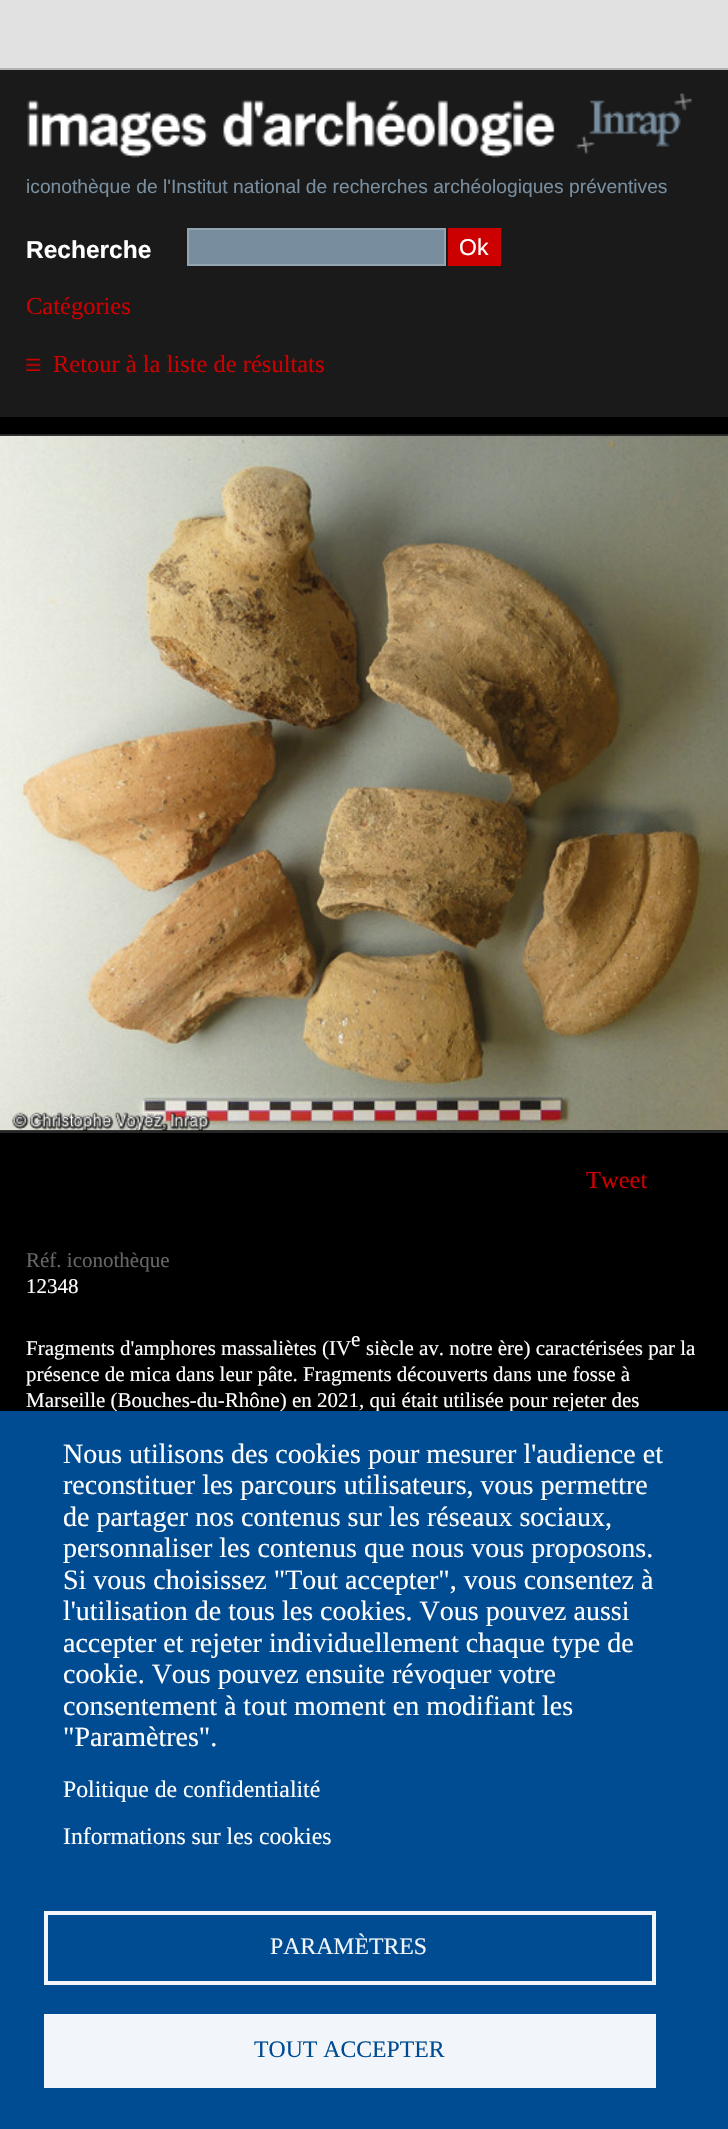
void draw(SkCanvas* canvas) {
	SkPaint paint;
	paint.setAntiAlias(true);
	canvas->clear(0xff000000);
	paint.setColor(0xffe1e1e1);
	canvas->drawRect(SkRect::MakeXYWH(0, 0, 728, 68), paint);
	paint.setColor(0xffb3b3b3);
	canvas->drawRect(SkRect::MakeXYWH(0, 68, 728, 2), paint);
	paint.setColor(0xff1a1a1a);
	canvas->drawRect(SkRect::MakeXYWH(0, 70, 728, 347), paint);
	canvas->drawImageRect(SkImages::DeferredFromEncodedData(SkData::MakeFromFileName("img1.png")), SkRect::MakeXYWH(27, 93, 665, 65), SkSamplingOptions());
	SkFont f1(fontMgr->matchFamilyStyle("Liberation Sans", SkFontStyle::Normal()), 19.25);
	f1.setSubpixel(true);
	paint.setColor(0xff788e9e);
	canvas->drawString("iconothèque de l'Institut national de recherches archéologiques préventives", 26, 193, f1, paint);
	SkFont f2(fontMgr->matchFamilyStyle("Liberation Sans", SkFontStyle::Bold()), 24.5);
	f2.setSubpixel(true);
	paint.setColor(0xffffffff);
	canvas->drawString("Recherche", 26, 258, f2, paint);
	paint.setColor(0xff788e9e);
	canvas->drawRect(SkRect::MakeXYWH(188, 229, 257, 36), paint);
	paint.setStroke(true);
	paint.setStrokeWidth(2);
	paint.setColor(0xff93a5b1);
	canvas->drawRect(SkRect::MakeXYWH(188, 229, 257, 36), paint);
	paint.setStroke(false);
	paint.setColor(0xffcc0000);
	canvas->drawRect(SkRect::MakeXYWH(448, 228, 53, 38), paint);
	SkFont f3(fontMgr->matchFamilyStyle("Liberation Sans", SkFontStyle::Normal()), 23);
	f3.setSubpixel(true);
	paint.setColor(0xffffffff);
	canvas->drawString("Ok", 459, 255, f3, paint);
	SkFont f4(fontMgr->matchFamilyStyle("Liberation Serif", SkFontStyle::Normal()), 24.5);
	f4.setSubpixel(true);
	paint.setColor(0xffcc0000);
	canvas->drawString("Catégories", 26, 314, f4, paint);
	canvas->drawImageRect(SkImages::DeferredFromEncodedData(SkData::MakeFromFileName("img2.png")), SkRect::MakeXYWH(26, 358, 15, 13), SkSamplingOptions());
	canvas->drawString("Retour à la liste de résultats", 53, 372, f4, paint);
	paint.setColor(0xff262626);
	canvas->drawRect(SkRect::MakeXYWH(0, 434, 728, 2), paint);
	canvas->drawRect(SkRect::MakeXYWH(0, 1131, 728, 2), paint);
	canvas->drawImageRect(SkImages::DeferredFromEncodedData(SkData::MakeFromFileName("img3.png")), SkRect::MakeXYWH(0, 435, 728, 696), SkSamplingOptions());
	paint.setColor(0xffcc0000);
	canvas->drawString("Tweet", 586, 1188, f4, paint);
	SkFont f5(fontMgr->matchFamilyStyle("Liberation Serif", SkFontStyle::Normal()), 21);
	f5.setSubpixel(true);
	paint.setColor(0xff666666);
	canvas->drawString("Réf. iconothèque", 26, 1267, f5, paint);
	paint.setColor(0xffffffff);
	canvas->drawString("12348", 26, 1293, f5, paint);
	canvas->drawString("Fragments d'amphores massaliètes (IV", 26, 1355, f5, paint);
	canvas->drawString("e", 351, 1346, f5, paint);
	canvas->drawString("siècle av. notre ère) caractérisées par la", 366, 1355, f5, paint);
	canvas->drawString("présence de mica dans leur pâte. Fragments découverts dans une fosse à", 26, 1381, f5, paint);
	canvas->drawString("Marseille (Bouches-du-Rhône) en 2021, qui était utilisée pour rejeter des", 26, 1407, f5, paint);
	paint.setColor(0xff004c93);
	canvas->drawRect(SkRect::MakeXYWH(0, 1411, 728, 718), paint);
	SkFont f6(fontMgr->matchFamilyStyle("Liberation Serif", SkFontStyle::Normal()), 28);
	f6.setSubpixel(true);
	paint.setColor(0xffffffff);
	canvas->drawString("Nous utilisons des cookies pour mesurer l'audience et", 63, 1463, f6, paint);
	canvas->drawString("reconstituer les parcours utilisateurs, vous permettre", 63, 1494, f6, paint);
	canvas->drawString("de partager nos contenus sur les réseaux sociaux,", 63, 1526, f6, paint);
	canvas->drawString("personnaliser les contenus que nous vous proposons.", 63, 1557, f6, paint);
	canvas->drawString("Si vous choisissez \"Tout accepter\", vous consentez à", 63, 1589, f6, paint);
	canvas->drawString("l'utilisation de tous les cookies. Vous pouvez aussi", 63, 1620, f6, paint);
	canvas->drawString("accepter et rejeter individuellement chaque type de", 63, 1652, f6, paint);
	canvas->drawString("cookie. Vous pouvez ensuite révoquer votre", 63, 1683, f6, paint);
	canvas->drawString("consentement à tout moment en modifiant les", 63, 1715, f6, paint);
	canvas->drawString("\"Paramètres\".", 63, 1746, f6, paint);
	SkFont f7(fontMgr->matchFamilyStyle("Liberation Serif", SkFontStyle::Normal()), 23.75);
	f7.setSubpixel(true);
	canvas->drawString("Politique de confidentialité", 63, 1797, f7, paint);
	canvas->drawString("Informations sur les cookies", 63, 1844, f7, paint);
	paint.setStroke(true);
	paint.setStrokeWidth(4);
	paint.setColor(0xfff2f6fa);
	canvas->drawRect(SkRect::MakeXYWH(46, 1913, 608, 70), paint);
	paint.setStroke(false);
	canvas->drawString("PARAMÈTRES", 270, 1954, f7, paint);
	canvas->drawRect(SkRect::MakeXYWH(44, 2014, 612, 74), paint);
	paint.setColor(0xff004c93);
	canvas->drawString("TOUT ACCEPTER", 254, 2057, f7, paint);
}
